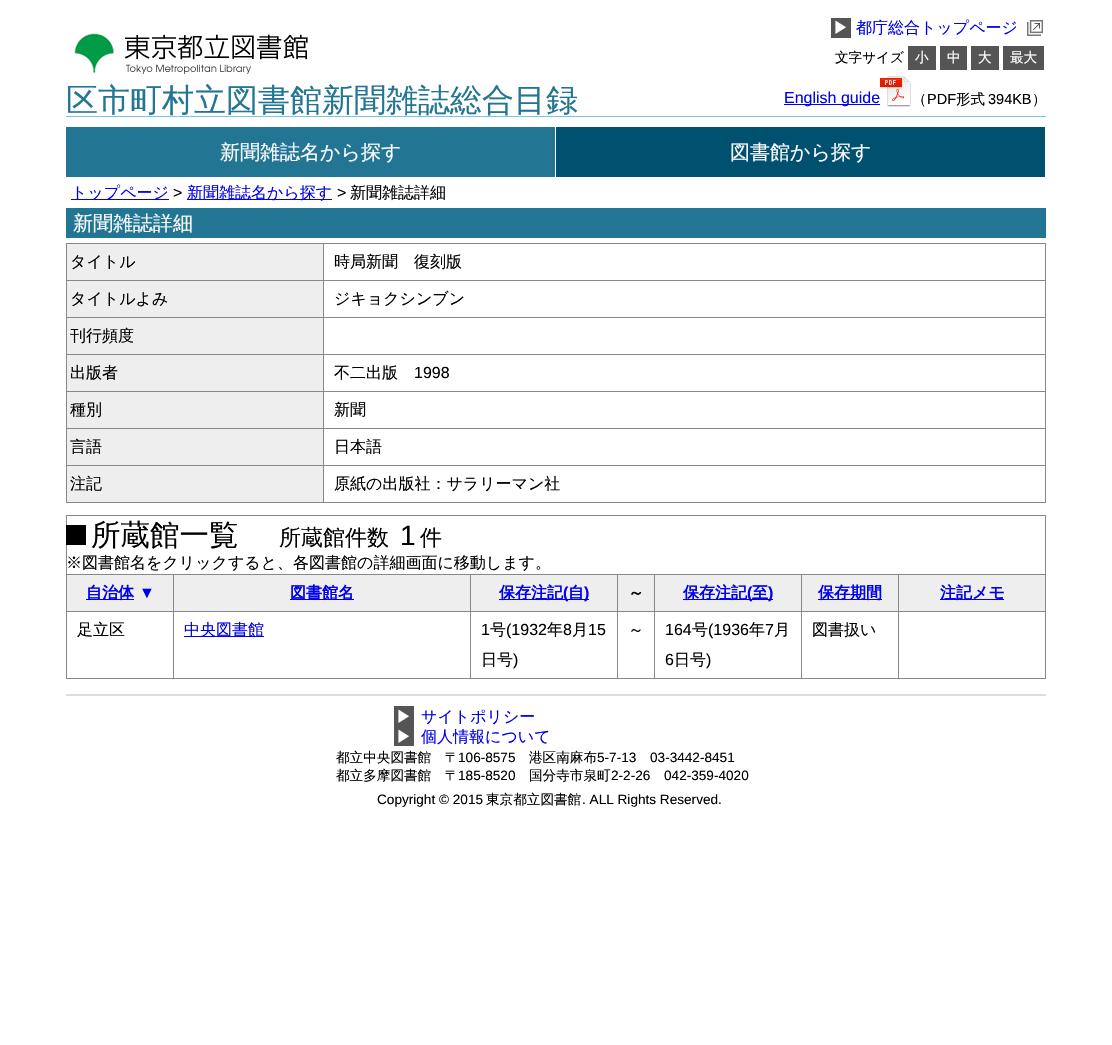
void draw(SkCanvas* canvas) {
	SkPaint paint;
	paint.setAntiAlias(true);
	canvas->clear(0xffffffff);
	canvas->drawImageRect(SkImages::DeferredFromEncodedData(SkData::MakeFromFileName("img1.png")), SkRect::MakeXYWH(74, 33, 234, 41), SkSamplingOptions());
	SkFont f1(fontMgr->matchFamilyStyle("WenQuanYi Zen Hei", SkFontStyle(500, SkFontStyle::kNormal_Width, SkFontStyle::kUpright_Slant)), 32);
	f1.setSubpixel(true);
	paint.setColor(0xff227693);
	canvas->drawString("区市町村立図書館新聞雑誌総合目録", 66, 111, f1, paint);
	paint.setColor(0xff555555);
	canvas->drawRect(SkRect::MakeXYWH(831, 18, 20, 20), paint);
	SkFont f2(fontMgr->matchFamilyStyle("WenQuanYi Zen Hei", SkFontStyle(500, SkFontStyle::kNormal_Width, SkFontStyle::kUpright_Slant)), 16);
	f2.setSubpixel(true);
	paint.setColor(0xffffffff);
	canvas->drawString("▶", 833, 33, f2, paint);
	paint.setColor(0xff0000ee);
	canvas->drawString("都庁総合トップページ", 856, 33, f2, paint);
	canvas->drawImageRect(SkImages::DeferredFromEncodedData(SkData::MakeFromFileName("img2.png")), SkRect::MakeXYWH(1027, 20, 16, 16), SkSamplingOptions());
	SkFont f3(fontMgr->matchFamilyStyle("WenQuanYi Zen Hei", SkFontStyle(500, SkFontStyle::kNormal_Width, SkFontStyle::kUpright_Slant)), 13.6);
	f3.setSubpixel(true);
	paint.setColor(0xff000000);
	canvas->drawString("文字サイズ", 835, 62, f3, paint);
	paint.setColor(0xff555555);
	canvas->drawRect(SkRect::MakeXYWH(908, 46, 28, 24), paint);
	paint.setColor(0xffffffff);
	canvas->drawString("小", 915, 62, f3, paint);
	paint.setColor(0xff555555);
	canvas->drawRect(SkRect::MakeXYWH(940, 46, 27, 24), paint);
	paint.setColor(0xffffffff);
	canvas->drawString("中", 947, 62, f3, paint);
	paint.setColor(0xff555555);
	canvas->drawRect(SkRect::MakeXYWH(971, 46, 28, 24), paint);
	paint.setColor(0xffffffff);
	canvas->drawString("大", 978, 62, f3, paint);
	paint.setColor(0xff555555);
	canvas->drawRect(SkRect::MakeXYWH(1003, 46, 41, 24), paint);
	paint.setColor(0xffffffff);
	canvas->drawString("最大", 1010, 62, f3, paint);
	paint.setColor(0xff0000ee);
	canvas->drawRect(SkRect::MakeXYWH(784, 104, 96, 1), paint);
	SkFont f4(fontMgr->matchFamilyStyle("Liberation Sans", SkFontStyle::Normal()), 16);
	f4.setSubpixel(true);
	canvas->drawString("English guide", 784, 103, f4, paint);
	canvas->drawImageRect(SkImages::DeferredFromEncodedData(SkData::MakeFromFileName("img3.png")), SkRect::MakeXYWH(880, 76, 31, 31), SkSamplingOptions());
	SkFont f5(fontMgr->matchFamilyStyle("WenQuanYi Zen Hei", SkFontStyle(500, SkFontStyle::kNormal_Width, SkFontStyle::kUpright_Slant)), 14.5);
	f5.setSubpixel(true);
	paint.setColor(0xff000000);
	canvas->drawString("（", 912, 104, f5, paint);
	SkFont f6(fontMgr->matchFamilyStyle("Liberation Sans", SkFontStyle::Normal()), 14.5);
	f6.setSubpixel(true);
	canvas->drawString("PDF", 927, 104, f6, paint);
	canvas->drawString("形式", 956, 104, f5, paint);
	canvas->drawString("394KB", 988, 104, f6, paint);
	canvas->drawString("）", 1032, 104, f5, paint);
	paint.setColor(0xff80c4d7);
	canvas->drawRect(SkRect::MakeXYWH(66, 116, 980, 1), paint);
	paint.setColor(0xff227693);
	canvas->drawRect(SkRect::MakeXYWH(66, 127, 489, 50), paint);
	SkFont f7(fontMgr->matchFamilyStyle("WenQuanYi Zen Hei", SkFontStyle(500, SkFontStyle::kNormal_Width, SkFontStyle::kUpright_Slant)), 20);
	f7.setSubpixel(true);
	paint.setColor(0xffffffff);
	canvas->drawString("新聞雑誌名から探す", 220, 159, f7, paint);
	paint.setColor(0xff005070);
	canvas->drawRect(SkRect::MakeXYWH(556, 127, 489, 50), paint);
	paint.setColor(0xffffffff);
	canvas->drawString("図書館から探す", 730, 159, f7, paint);
	paint.setColor(0xff0000ee);
	canvas->drawRect(SkRect::MakeXYWH(71, 199, 98, 1), paint);
	canvas->drawString("トップページ", 71, 198, f2, paint);
	paint.setColor(0xff000000);
	canvas->drawString(">", 173, 198, f4, paint);
	paint.setColor(0xff0000ee);
	canvas->drawRect(SkRect::MakeXYWH(187, 199, 145, 1), paint);
	canvas->drawString("新聞雑誌名から探す", 187, 198, f2, paint);
	paint.setColor(0xff000000);
	canvas->drawString(">", 337, 198, f4, paint);
	canvas->drawString("新聞雑誌詳細", 350, 198, f2, paint);
	paint.setColor(0xff227693);
	canvas->drawRect(SkRect::MakeXYWH(66, 208, 980, 30), paint);
	paint.setColor(0xffffffff);
	canvas->drawString("新聞雑誌詳細", 73, 230, f7, paint);
	paint.setColor(0xff888888);
	canvas->drawRect(SkRect::MakeXYWH(66, 243, 980, 1), paint);
	canvas->drawRect(SkRect::MakeXYWH(1045, 243, 1, 260), paint);
	canvas->drawRect(SkRect::MakeXYWH(66, 502, 980, 1), paint);
	canvas->drawRect(SkRect::MakeXYWH(66, 243, 1, 260), paint);
	paint.setColor(0xffeeeeee);
	canvas->drawRect(SkRect::MakeXYWH(67, 244, 256, 36), paint);
	paint.setColor(0xff000000);
	canvas->drawString("タイトル", 70, 267, f2, paint);
	canvas->drawString("時局新聞　復刻版", 334, 267, f2, paint);
	paint.setColor(0xff888888);
	canvas->drawRect(SkRect::MakeXYWH(66, 280, 980, 1), paint);
	paint.setColor(0xffeeeeee);
	canvas->drawRect(SkRect::MakeXYWH(67, 281, 256, 36), paint);
	paint.setColor(0xff000000);
	canvas->drawString("タイトルよみ", 70, 304, f2, paint);
	canvas->drawString("ジキョクシンブン", 334, 304, f2, paint);
	paint.setColor(0xff888888);
	canvas->drawRect(SkRect::MakeXYWH(66, 317, 980, 1), paint);
	paint.setColor(0xffeeeeee);
	canvas->drawRect(SkRect::MakeXYWH(67, 318, 256, 36), paint);
	paint.setColor(0xff000000);
	canvas->drawString("刊行頻度", 70, 341, f2, paint);
	paint.setColor(0xff888888);
	canvas->drawRect(SkRect::MakeXYWH(66, 354, 980, 1), paint);
	paint.setColor(0xffeeeeee);
	canvas->drawRect(SkRect::MakeXYWH(67, 355, 256, 36), paint);
	paint.setColor(0xff000000);
	canvas->drawString("出版者", 70, 378, f2, paint);
	canvas->drawString("不二出版", 334, 378, f2, paint);
	canvas->drawString("1998", 414, 378, f4, paint);
	paint.setColor(0xff888888);
	canvas->drawRect(SkRect::MakeXYWH(66, 391, 980, 1), paint);
	paint.setColor(0xffeeeeee);
	canvas->drawRect(SkRect::MakeXYWH(67, 392, 256, 36), paint);
	paint.setColor(0xff000000);
	canvas->drawString("種別", 70, 415, f2, paint);
	canvas->drawString("新聞", 334, 415, f2, paint);
	paint.setColor(0xff888888);
	canvas->drawRect(SkRect::MakeXYWH(66, 428, 980, 1), paint);
	paint.setColor(0xffeeeeee);
	canvas->drawRect(SkRect::MakeXYWH(67, 429, 256, 36), paint);
	paint.setColor(0xff000000);
	canvas->drawString("言語", 70, 452, f2, paint);
	canvas->drawString("日本語", 334, 452, f2, paint);
	paint.setColor(0xff888888);
	canvas->drawRect(SkRect::MakeXYWH(66, 465, 980, 1), paint);
	paint.setColor(0xffeeeeee);
	canvas->drawRect(SkRect::MakeXYWH(67, 466, 256, 36), paint);
	paint.setColor(0xff000000);
	canvas->drawString("注記", 70, 489, f2, paint);
	paint.setColor(0xff888888);
	canvas->drawRect(SkRect::MakeXYWH(323, 243, 1, 260), paint);
	paint.setColor(0xff000000);
	canvas->drawString("原紙の出版社：サラリーマン社", 334, 489, f2, paint);
	paint.setColor(0xff888888);
	canvas->drawRect(SkRect::MakeXYWH(66, 515, 980, 1), paint);
	canvas->drawRect(SkRect::MakeXYWH(1045, 515, 1, 164), paint);
	canvas->drawRect(SkRect::MakeXYWH(66, 678, 980, 1), paint);
	canvas->drawRect(SkRect::MakeXYWH(66, 515, 1, 164), paint);
	paint.setColor(0xff000000);
	canvas->drawRect(SkRect::MakeXYWH(66, 525, 20, 20), paint);
	SkFont f8(fontMgr->matchFamilyStyle("WenQuanYi Zen Hei", SkFontStyle(500, SkFontStyle::kNormal_Width, SkFontStyle::kUpright_Slant)), 29.5);
	f8.setSubpixel(true);
	canvas->drawString("所蔵館一覧", 91, 545, f8, paint);
	SkFont f9(fontMgr->matchFamilyStyle("WenQuanYi Zen Hei", SkFontStyle(500, SkFontStyle::kNormal_Width, SkFontStyle::kUpright_Slant)), 22);
	f9.setSubpixel(true);
	canvas->drawString("所蔵館件数", 279, 545, f9, paint);
	SkFont f10(fontMgr->matchFamilyStyle("Liberation Sans", SkFontStyle::Normal()), 28);
	f10.setSubpixel(true);
	canvas->drawString("1", 400, 545, f10, paint);
	canvas->drawString("件", 420, 545, f9, paint);
	canvas->drawString("※図書館名をクリックすると、各図書館の詳細画面に移動します。", 66, 568, f2, paint);
	paint.setColor(0xff888888);
	canvas->drawRect(SkRect::MakeXYWH(66, 574, 980, 1), paint);
	paint.setColor(0xffeeeeee);
	canvas->drawRect(SkRect::MakeXYWH(67, 575, 106, 36), paint);
	paint.setColor(0xff0000ee);
	canvas->drawRect(SkRect::MakeXYWH(86, 599, 48, 1), paint);
	SkFont f11(fontMgr->matchFamilyStyle("WenQuanYi Zen Hei", SkFontStyle::Bold()), 16);
	f11.setSubpixel(true);
	canvas->drawString("自治体", 86, 598, f11, paint);
	SkFont f12(fontMgr->matchFamilyStyle("Liberation Sans", SkFontStyle::Bold()), 16);
	f12.setSubpixel(true);
	canvas->drawString("▼", 139, 598, f12, paint);
	paint.setColor(0xffeeeeee);
	canvas->drawRect(SkRect::MakeXYWH(174, 575, 296, 36), paint);
	paint.setColor(0xff0000ee);
	canvas->drawRect(SkRect::MakeXYWH(290, 599, 64, 1), paint);
	canvas->drawString("図書館名", 290, 598, f11, paint);
	paint.setColor(0xffeeeeee);
	canvas->drawRect(SkRect::MakeXYWH(471, 575, 146, 36), paint);
	paint.setColor(0xff0000ee);
	canvas->drawRect(SkRect::MakeXYWH(499, 599, 90, 1), paint);
	canvas->drawString("保存注記", 499, 598, f11, paint);
	canvas->drawString("(", 563, 598, f12, paint);
	canvas->drawString("自", 568, 598, f11, paint);
	canvas->drawString(")", 584, 598, f12, paint);
	paint.setColor(0xffeeeeee);
	canvas->drawRect(SkRect::MakeXYWH(618, 575, 36, 36), paint);
	paint.setColor(0xff000000);
	canvas->drawString("～", 628, 598, f11, paint);
	paint.setColor(0xffeeeeee);
	canvas->drawRect(SkRect::MakeXYWH(655, 575, 146, 36), paint);
	paint.setColor(0xff0000ee);
	canvas->drawRect(SkRect::MakeXYWH(683, 599, 90, 1), paint);
	canvas->drawString("保存注記", 683, 598, f11, paint);
	canvas->drawString("(", 747, 598, f12, paint);
	canvas->drawString("至", 752, 598, f11, paint);
	canvas->drawString(")", 768, 598, f12, paint);
	paint.setColor(0xffeeeeee);
	canvas->drawRect(SkRect::MakeXYWH(802, 575, 96, 36), paint);
	paint.setColor(0xff0000ee);
	canvas->drawRect(SkRect::MakeXYWH(818, 599, 64, 1), paint);
	canvas->drawString("保存期間", 818, 598, f11, paint);
	paint.setColor(0xffeeeeee);
	canvas->drawRect(SkRect::MakeXYWH(899, 575, 146, 36), paint);
	paint.setColor(0xff0000ee);
	canvas->drawRect(SkRect::MakeXYWH(940, 599, 64, 1), paint);
	canvas->drawString("注記メモ", 940, 598, f11, paint);
	paint.setColor(0xff888888);
	canvas->drawRect(SkRect::MakeXYWH(66, 611, 980, 1), paint);
	paint.setColor(0xff000000);
	canvas->drawString("足立区", 77, 635, f2, paint);
	paint.setColor(0xff888888);
	canvas->drawRect(SkRect::MakeXYWH(173, 574, 1, 105), paint);
	paint.setColor(0xff0000ee);
	canvas->drawRect(SkRect::MakeXYWH(184, 636, 80, 1), paint);
	canvas->drawString("中央図書館", 184, 635, f2, paint);
	paint.setColor(0xff888888);
	canvas->drawRect(SkRect::MakeXYWH(470, 574, 1, 105), paint);
	paint.setColor(0xff000000);
	canvas->drawString("1", 481, 635, f4, paint);
	canvas->drawString("号", 490, 635, f2, paint);
	canvas->drawString("(1932", 506, 635, f4, paint);
	canvas->drawString("年", 547, 635, f2, paint);
	canvas->drawString("8", 563, 635, f4, paint);
	canvas->drawString("月", 572, 635, f2, paint);
	canvas->drawString("15", 588, 635, f4, paint);
	canvas->drawString("日号", 481, 665, f2, paint);
	canvas->drawString(")", 513, 665, f4, paint);
	paint.setColor(0xff888888);
	canvas->drawRect(SkRect::MakeXYWH(617, 574, 1, 105), paint);
	paint.setColor(0xff000000);
	canvas->drawString("～", 628, 635, f2, paint);
	paint.setColor(0xff888888);
	canvas->drawRect(SkRect::MakeXYWH(654, 574, 1, 105), paint);
	paint.setColor(0xff000000);
	canvas->drawString("164", 665, 635, f4, paint);
	canvas->drawString("号", 692, 635, f2, paint);
	canvas->drawString("(1936", 708, 635, f4, paint);
	canvas->drawString("年", 749, 635, f2, paint);
	canvas->drawString("7", 765, 635, f4, paint);
	canvas->drawString("月", 774, 635, f2, paint);
	canvas->drawString("6", 665, 665, f4, paint);
	canvas->drawString("日号", 674, 665, f2, paint);
	canvas->drawString(")", 706, 665, f4, paint);
	paint.setColor(0xff888888);
	canvas->drawRect(SkRect::MakeXYWH(801, 574, 1, 105), paint);
	paint.setColor(0xff000000);
	canvas->drawString("図書扱い", 812, 635, f2, paint);
	paint.setColor(0xff888888);
	canvas->drawRect(SkRect::MakeXYWH(898, 574, 1, 105), paint);
	paint.setColor(0xffdddddd);
	canvas->drawRect(SkRect::MakeXYWH(66, 694, 980, 2), paint);
	paint.setColor(0xff555555);
	canvas->drawRect(SkRect::MakeXYWH(394, 706, 20, 40), paint);
	paint.setColor(0xffffffff);
	canvas->drawString("▶", 396, 722, f2, paint);
	paint.setColor(0xff0000ee);
	canvas->drawString("サイトポリシー", 421, 722, f2, paint);
	paint.setColor(0xffffffff);
	canvas->drawString("▶", 396, 742, f2, paint);
	paint.setColor(0xff0000ee);
	canvas->drawString("個人情報について", 421, 742, f2, paint);
	paint.setColor(0xff000000);
	canvas->drawString("都立中央図書館　〒", 336, 762, f3, paint);
	SkFont f13(fontMgr->matchFamilyStyle("Liberation Sans", SkFontStyle::Normal()), 13.6);
	f13.setSubpixel(true);
	canvas->drawString("106-8575", 458, 762, f13, paint);
	canvas->drawString("港区南麻布", 529, 762, f3, paint);
	canvas->drawString("5-7-13", 597, 762, f13, paint);
	canvas->drawString("03-3442-8451", 650, 762, f13, paint);
	canvas->drawString("都立多摩図書館　〒", 336, 780, f3, paint);
	canvas->drawString("185-8520", 458, 780, f13, paint);
	canvas->drawString("国分寺市泉町", 529, 780, f3, paint);
	canvas->drawString("2-2-26", 611, 780, f13, paint);
	canvas->drawString("042-359-4020", 664, 780, f13, paint);
	canvas->drawString("Copyright © 2015", 377, 804, f13, paint);
	canvas->drawString("東京都立図書館", 486, 804, f3, paint);
	canvas->drawString(". ALL Rights Reserved.", 582, 804, f13, paint);
}
